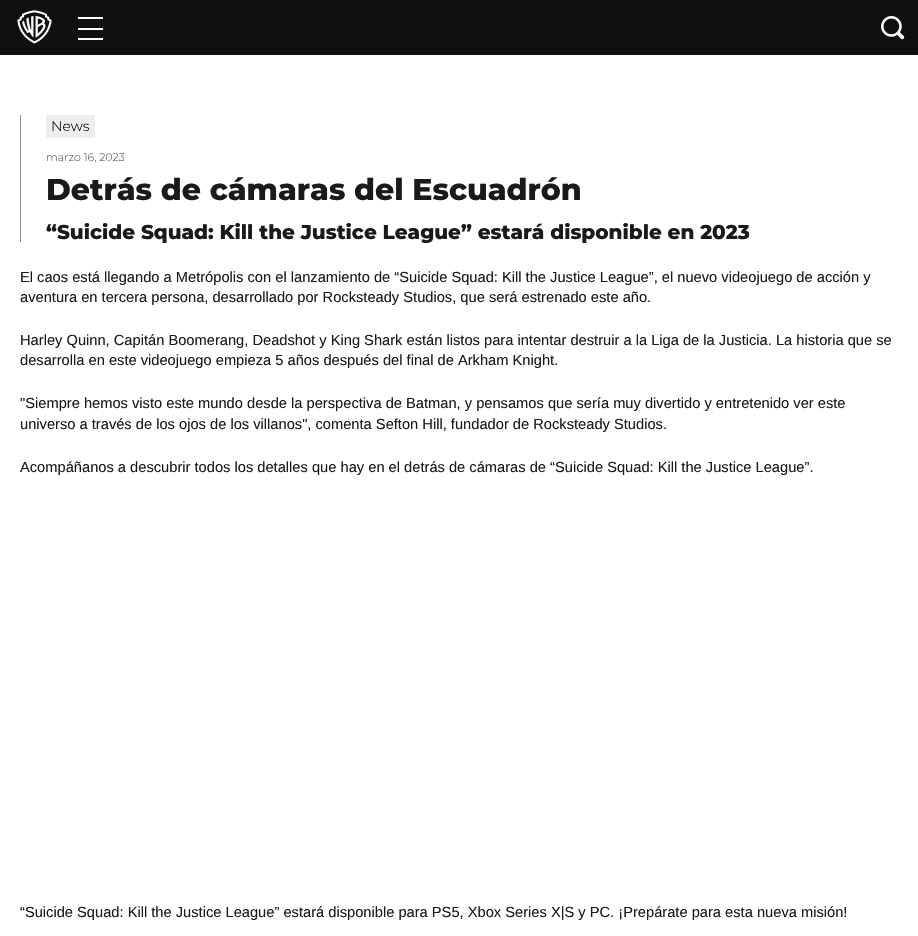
void draw(SkCanvas* canvas) {
	SkPaint paint;
	paint.setAntiAlias(true);
	canvas->clear(0xffffffff);
	paint.setColor(0xff101010);
	canvas->drawRect(SkRect::MakeXYWH(0, 0, 918, 55), paint);
	canvas->drawImageRect(SkImages::DeferredFromEncodedData(SkData::MakeFromFileName("img1.png")), SkRect::MakeXYWH(17, 10, 35, 34), SkSamplingOptions());
	paint.setColor(0xffffffff);
	canvas->drawRect(SkRect::MakeXYWH(78, 17, 25, 2), paint);
	canvas->drawRect(SkRect::MakeXYWH(78, 28, 25, 2), paint);
	canvas->drawRect(SkRect::MakeXYWH(78, 38, 25, 2), paint);
	canvas->drawImageRect(SkImages::DeferredFromEncodedData(SkData::MakeFromFileName("img2.png")), SkRect::MakeXYWH(881, 16, 24, 24), SkSamplingOptions());
	paint.setColor(0xff8e8e8e);
	canvas->drawRect(SkRect::MakeXYWH(20, 115, 1, 127), paint);
	paint.setColor(0xffeeeeee);
	canvas->drawRect(SkRect::MakeXYWH(46, 115, 49, 23), paint);
	SkFont f1(fontMgr->matchFamilyStyle("Montserrat", SkFontStyle(300, SkFontStyle::kNormal_Width, SkFontStyle::kUpright_Slant)), 14);
	f1.setSubpixel(true);
	paint.setColor(0xff000000);
	canvas->drawString("News", 51, 131, f1, paint);
	SkFont f2(fontMgr->matchFamilyStyle("Montserrat", SkFontStyle(300, SkFontStyle::kNormal_Width, SkFontStyle::kUpright_Slant)), 11);
	f2.setSubpixel(true);
	paint.setColor(0xff595959);
	canvas->drawString("marzo 16, 2023", 46, 161, f2, paint);
	SkFont f3(fontMgr->matchFamilyStyle("Montserrat", SkFontStyle(800, SkFontStyle::kNormal_Width, SkFontStyle::kUpright_Slant)), 30);
	f3.setSubpixel(true);
	paint.setColor(0xff1a1a1a);
	canvas->drawString("Detrás de cámaras del Escuadrón", 46, 200, f3, paint);
	SkFont f4(fontMgr->matchFamilyStyle("Montserrat", SkFontStyle(800, SkFontStyle::kNormal_Width, SkFontStyle::kUpright_Slant)), 20);
	f4.setSubpixel(true);
	canvas->drawString("“Suicide Squad: Kill the Justice League” estará disponible en 2023", 46, 239, f4, paint);
	SkFont f5(fontMgr->matchFamilyStyle("Liberation Sans", SkFontStyle::Normal()), 14.67);
	f5.setSubpixel(true);
	canvas->drawString("El caos está llegando a Metrópolis con el lanzamiento de “Suicide Squad: Kill the Justice League”, el nuevo videojuego de acción y", 20, 282, f5, paint);
	canvas->drawString("aventura en tercera persona, desarrollado por Rocksteady Studios, que será estrenado este año.", 20, 302, f5, paint);
	canvas->drawString("Harley Quinn, Capitán Boomerang, Deadshot y King Shark están listos para intentar destruir a la Liga de la Justicia. La historia que se", 20, 345, f5, paint);
	canvas->drawString("desarrolla en este videojuego empieza 5 años después del final de Arkham Knight.", 20, 365, f5, paint);
	canvas->drawString("\"Siempre hemos visto este mundo desde la perspectiva de Batman, y pensamos que sería muy divertido y entretenido ver este", 20, 408, f5, paint);
	canvas->drawString("universo a través de los ojos de los villanos\", comenta Sefton Hill, fundador de Rocksteady Studios.", 20, 429, f5, paint);
	canvas->drawString("Acompáñanos a descubrir todos los detalles que hay en el detrás de cámaras de “Suicide Squad: Kill the Justice League”.", 20, 472, f5, paint);
	canvas->drawString("“Suicide Squad: Kill the Justice League” estará disponible para PS5, Xbox Series X|S y PC. ¡Prepárate para esta nueva misión!", 20, 917, f5, paint);
}
